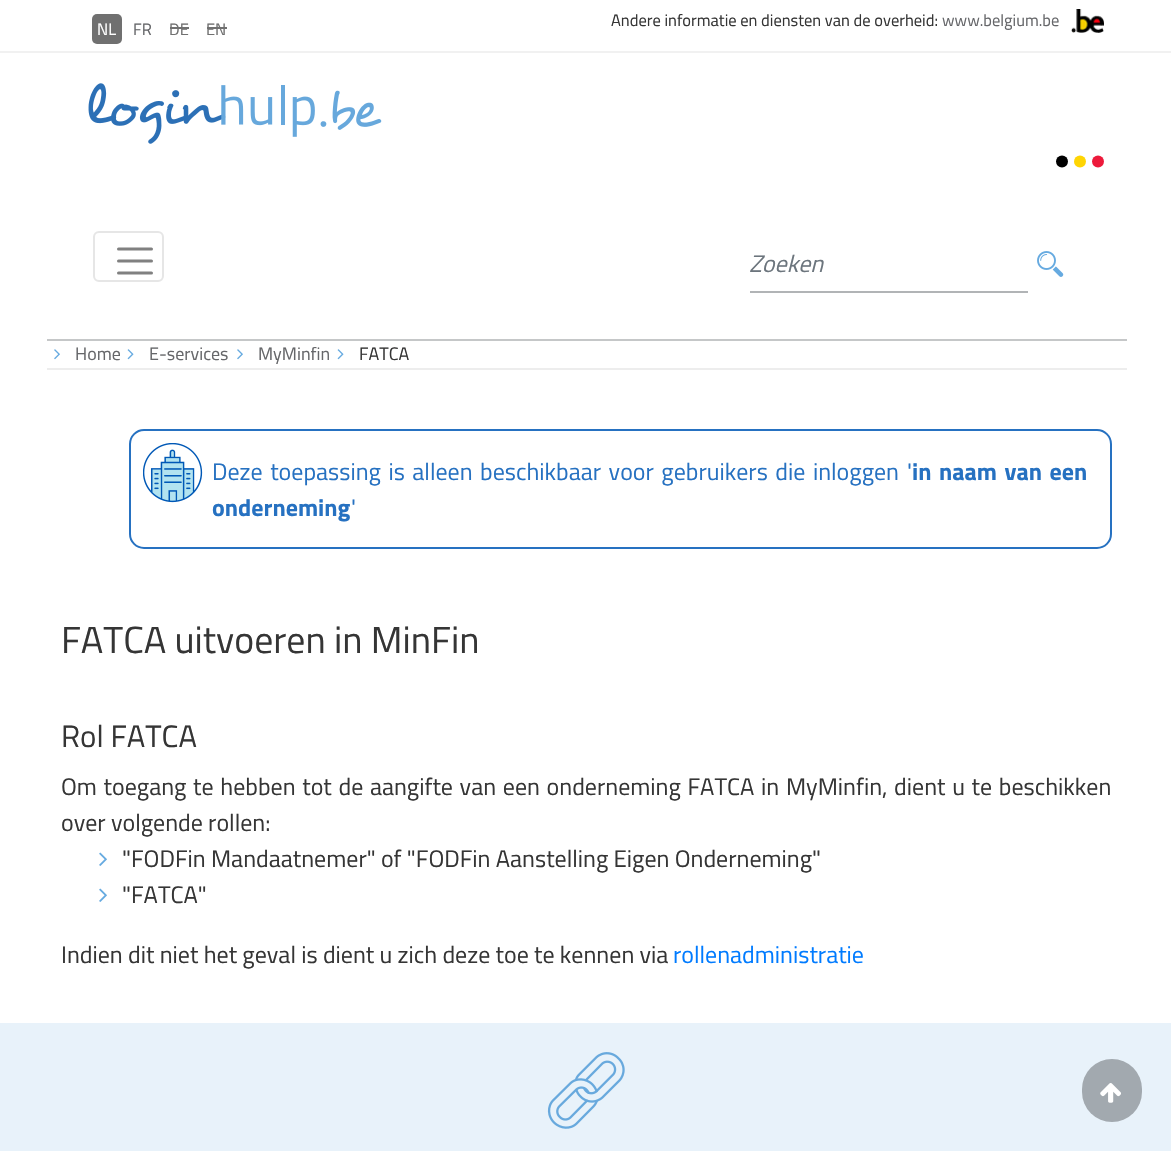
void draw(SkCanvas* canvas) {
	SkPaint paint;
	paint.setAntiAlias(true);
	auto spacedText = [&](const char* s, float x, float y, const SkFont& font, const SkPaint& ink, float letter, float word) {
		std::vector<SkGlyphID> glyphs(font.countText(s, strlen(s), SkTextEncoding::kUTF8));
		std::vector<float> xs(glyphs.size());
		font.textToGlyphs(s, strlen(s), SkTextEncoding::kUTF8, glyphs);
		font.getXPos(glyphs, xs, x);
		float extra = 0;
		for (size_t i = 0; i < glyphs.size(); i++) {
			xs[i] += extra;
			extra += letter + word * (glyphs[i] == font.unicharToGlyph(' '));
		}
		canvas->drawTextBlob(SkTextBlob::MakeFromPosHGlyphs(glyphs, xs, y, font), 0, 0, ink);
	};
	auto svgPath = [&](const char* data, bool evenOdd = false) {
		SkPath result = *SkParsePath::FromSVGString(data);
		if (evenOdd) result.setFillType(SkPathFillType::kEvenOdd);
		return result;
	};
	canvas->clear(0xffffffff);
	paint.setColor(0xfff1f1f1);
	canvas->drawRect(SkRect::MakeXYWH(0, 51, 1171, 2), paint);
	paint.setColor(0xff707070);
	canvas->drawRoundRect(SkRect::MakeXYWH(92, 14, 30, 30), 5, 5, paint);
	SkFont f1(fontMgr->matchFamilyStyle("Titillium Web", SkFontStyle::Normal()), 16.5);
	f1.setSubpixel(true);
	paint.setColor(0xffffffff);
	canvas->drawString("NL", 97, 35, f1, paint);
	paint.setColor(0xff66676a);
	canvas->drawString("FR", 133, 35, f1, paint);
	paint.setColor(0xff707070);
	canvas->drawString("DE", 169, 35, f1, paint);
	canvas->drawRect(SkRect::MakeXYWH(170, 27, 19, 2), paint);
	canvas->drawString("EN", 206, 35, f1, paint);
	canvas->drawRect(SkRect::MakeXYWH(207, 27, 20, 2), paint);
	paint.setColor(0xff353535);
	canvas->drawString("Andere informatie en diensten van de overheid:", 611, 26, f1, paint);
	paint.setColor(0xff66676a);
	canvas->drawString("www.belgium.be", 942, 26, f1, paint);
	canvas->drawImageRect(SkImages::DeferredFromEncodedData(SkData::MakeFromFileName("img1.png")), SkRect::MakeXYWH(1071, 9, 33, 24), SkSamplingOptions());
	canvas->drawImageRect(SkImages::DeferredFromEncodedData(SkData::MakeFromFileName("img2.png")), SkRect::MakeXYWH(88, 83, 294, 61), SkSamplingOptions());
	paint.setColor(0xff000000);
	canvas->drawCircle(1062, 161.5, 6, paint);
	paint.setColor(0xffffd503);
	canvas->drawCircle(1080, 161.5, 6, paint);
	paint.setColor(0xffed1a3b);
	canvas->drawCircle(1098, 161.5, 6, paint);
	paint.setStroke(true);
	paint.setStrokeWidth(2);
	paint.setColor(0xffe6e6e6);
	canvas->drawRoundRect(SkRect::MakeXYWH(94, 232, 69, 49), 5, 5, paint);
	paint.setStrokeWidth(3);
	paint.setStrokeCap(SkPaint::kRound_Cap);
	paint.setColor(0xff808080);
	canvas->drawPath(svgPath("M118.5 249H151.5M118.5 261H151.5M118.5 273H151.5"), paint);
	paint.setStroke(false);
	paint.setColor(0xffb1b4b6);
	canvas->drawRect(SkRect::MakeXYWH(750, 291, 278, 2), paint);
	SkFont f2(fontMgr->matchFamilyStyle("Titillium Web", SkFontStyle::Italic()), 24);
	f2.setSubpixel(true);
	paint.setColor(0xff6c757d);
	canvas->drawString("Zoeken", 749, 272, f2, paint);
	canvas->drawImageRect(SkImages::DeferredFromEncodedData(SkData::MakeFromFileName("img3.png")), SkRect::MakeXYWH(1037, 251, 27, 26), SkSamplingOptions());
	paint.setColor(0xffc5c7c8);
	canvas->drawRect(SkRect::MakeXYWH(47, 339, 1080, 2), paint);
	paint.setColor(0xffededed);
	canvas->drawRect(SkRect::MakeXYWH(47, 368, 1080, 2), paint);
	canvas->drawImageRect(SkImages::DeferredFromEncodedData(SkData::MakeFromFileName("img4.png")), SkRect::MakeXYWH(54, 349, 6, 11), SkSamplingOptions());
	SkFont f3(fontMgr->matchFamilyStyle("Titillium Web", SkFontStyle::Normal()), 18);
	f3.setSubpixel(true);
	paint.setColor(0xff66676a);
	canvas->drawString("Home", 75, 360, f3, paint);
	canvas->drawImageRect(SkImages::DeferredFromEncodedData(SkData::MakeFromFileName("img5.png")), SkRect::MakeXYWH(127, 349, 7, 11), SkSamplingOptions());
	canvas->drawString("E-services", 149, 360, f3, paint);
	canvas->drawImageRect(SkImages::DeferredFromEncodedData(SkData::MakeFromFileName("img4.png")), SkRect::MakeXYWH(237, 349, 6, 11), SkSamplingOptions());
	canvas->drawString("MyMinfin", 258, 360, f3, paint);
	canvas->drawImageRect(SkImages::DeferredFromEncodedData(SkData::MakeFromFileName("img5.png")), SkRect::MakeXYWH(337, 349, 7, 11), SkSamplingOptions());
	paint.setColor(0xff353535);
	canvas->drawString("FATCA", 359, 360, f3, paint);
	canvas->drawImageRect(SkImages::DeferredFromEncodedData(SkData::MakeFromFileName("img6.png")), SkRect::MakeXYWH(143, 443, 60, 60), SkSamplingOptions());
	paint.setStroke(true);
	paint.setStrokeWidth(2);
	paint.setStrokeCap(SkPaint::kButt_Cap);
	paint.setColor(0xff2671c1);
	canvas->drawRoundRect(SkRect::MakeXYWH(130, 430, 981, 118), 14, 14, paint);
	SkFont f4(fontMgr->matchFamilyStyle("Titillium Web", SkFontStyle::Normal()), 24);
	f4.setSubpixel(true);
	paint.setStroke(false);
	spacedText("Deze toepassing is alleen beschikbaar voor gebruikers die inloggen", 212, 480, f4, paint, 0, 2.25);
	canvas->drawString("'", 907, 480, f4, paint);
	SkFont f5(fontMgr->matchFamilyStyle("Titillium Web", SkFontStyle::Bold()), 24);
	f5.setSubpixel(true);
	spacedText("in naam van een", 912, 480, f5, paint, 0, 2.25);
	canvas->drawString("onderneming", 212, 516, f5, paint);
	canvas->drawString("'", 351, 516, f4, paint);
	SkFont f6(fontMgr->matchFamilyStyle("Titillium Web", SkFontStyle::Normal()), 37.75);
	f6.setSubpixel(true);
	paint.setColor(0xff353535);
	canvas->drawString("FATCA uitvoeren in MinFin", 61, 653, f6, paint);
	SkFont f7(fontMgr->matchFamilyStyle("Titillium Web", SkFontStyle::Normal()), 31);
	f7.setSubpixel(true);
	canvas->drawString("Rol FATCA", 61, 747, f7, paint);
	spacedText("Om toegang te hebben tot de aangifte van een onderneming FATCA in MyMinfin, dient u te beschikken", 61, 795, f4, paint, 0, 1.4);
	canvas->drawString("over volgende rollen:", 61, 831, f4, paint);
	canvas->drawImageRect(SkImages::DeferredFromEncodedData(SkData::MakeFromFileName("img7.png")), SkRect::MakeXYWH(99, 852, 8, 14), SkSamplingOptions());
	canvas->drawString("\"FODFin Mandaatnemer\" of \"FODFin Aanstelling Eigen Onderneming\"", 122, 867, f4, paint);
	canvas->drawImageRect(SkImages::DeferredFromEncodedData(SkData::MakeFromFileName("img7.png")), SkRect::MakeXYWH(99, 888, 8, 14), SkSamplingOptions());
	canvas->drawString("\"FATCA\"", 122, 903, f4, paint);
	canvas->drawString("Indien dit niet het geval is dient u zich deze toe te kennen via", 61, 963, f4, paint);
	paint.setColor(0xff007bff);
	canvas->drawString("rollenadministratie", 673, 963, f4, paint);
	paint.setColor(0xffe8f2fa);
	canvas->drawRect(SkRect::MakeXYWH(0, 1023, 1171, 128), paint);
	canvas->drawImageRect(SkImages::DeferredFromEncodedData(SkData::MakeFromFileName("img8.png")), SkRect::MakeXYWH(547, 1052, 78, 77), SkSamplingOptions());
	paint.setColor(0xffa2a9af);
	canvas->drawRoundRect(SkRect::MakeXYWH(1082, 1059, 60, 63), 30, 30, paint);
	canvas->drawImageRect(SkImages::DeferredFromEncodedData(SkData::MakeFromFileName("img9.png")), SkRect::MakeXYWH(1100, 1083, 21, 20), SkSamplingOptions());
}
